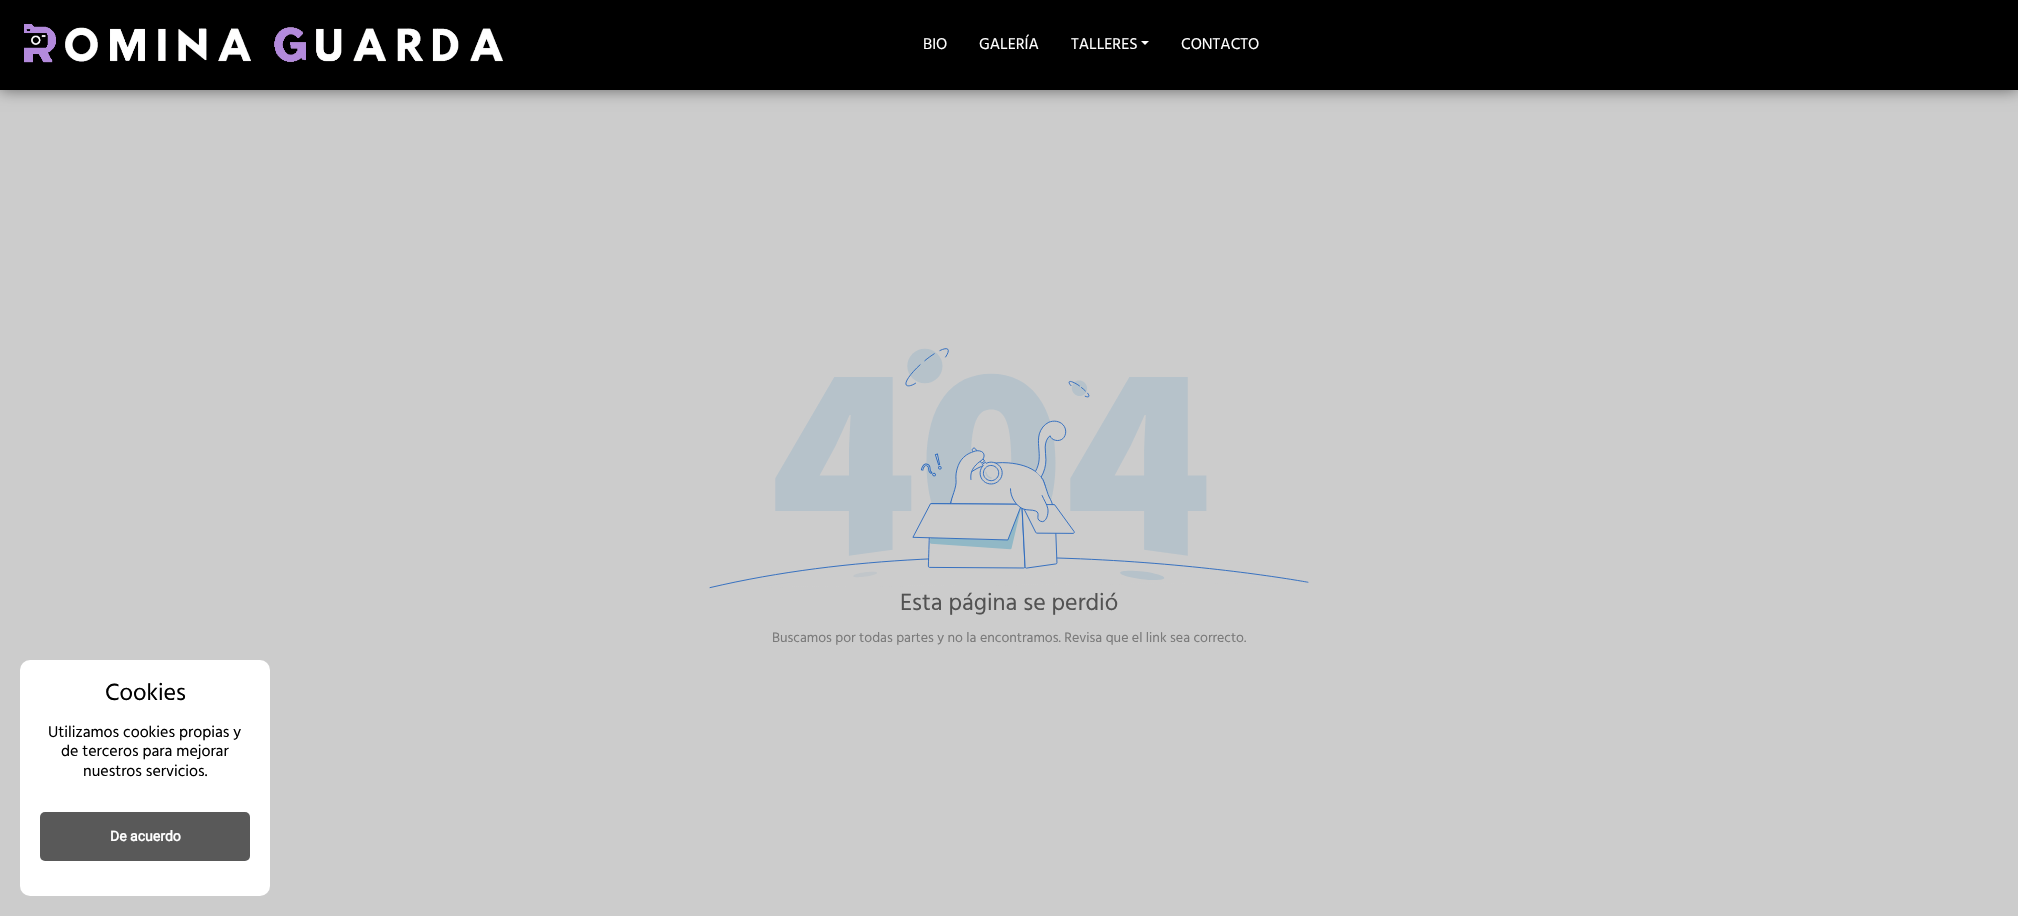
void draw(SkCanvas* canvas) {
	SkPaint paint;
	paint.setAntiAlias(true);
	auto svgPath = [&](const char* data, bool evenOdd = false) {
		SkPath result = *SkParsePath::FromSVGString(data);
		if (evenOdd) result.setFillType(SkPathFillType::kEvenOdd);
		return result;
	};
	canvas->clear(0xffcccccc);
	paint.setColor(0x80000000);
	paint.setMaskFilter(SkMaskFilter::MakeBlur(kNormal_SkBlurStyle, 7.5));
	canvas->drawRect(SkRect::MakeXYWH(0, 0, 2018, 90), paint);
	paint.setMaskFilter(nullptr);
	paint.setColor(0xff000000);
	canvas->drawRect(SkRect::MakeXYWH(0, 0, 2018, 90), paint);
	canvas->drawImageRect(SkImages::DeferredFromEncodedData(SkData::MakeFromFileName("img1.png")), SkRect::MakeXYWH(24, 24, 479, 39), SkSamplingOptions());
	SkFont f1(fontMgr->matchFamilyStyle("Hind", SkFontStyle::Normal()), 16);
	f1.setSubpixel(true);
	paint.setColor(0xffffffff);
	canvas->drawString("BIO", 923, 49, f1, paint);
	canvas->drawString("GALERÍA", 979, 49, f1, paint);
	canvas->drawString("TALLERES", 1071, 49, f1, paint);
	canvas->drawPath(svgPath("M1141 41H1149L1145 45Z"), paint);
	canvas->drawString("CONTACTO", 1181, 49, f1, paint);
	canvas->drawImageRect(SkImages::DeferredFromEncodedData(SkData::MakeFromFileName("img2.png")), SkRect::MakeXYWH(709, 348, 600, 241), SkSamplingOptions());
	SkFont f2(fontMgr->matchFamilyStyle("Hind", SkFontStyle::Normal()), 24);
	f2.setSubpixel(true);
	paint.setColor(0xff525252);
	canvas->drawString("Esta página se perdió", 900, 610, f2, paint);
	SkFont f3(fontMgr->matchFamilyStyle("Hind", SkFontStyle::Normal()), 14);
	f3.setSubpixel(true);
	paint.setColor(0xff7a7a7a);
	canvas->drawString("Buscamos por todas partes y no la encontramos. Revisa que el link sea correcto.", 772, 642, f3, paint);
	paint.setColor(0xffffffff);
	canvas->drawRoundRect(SkRect::MakeXYWH(20, 660, 250, 236), 10, 10, paint);
	paint.setColor(0xff000000);
	canvas->drawString("Cookies", 105, 700, f2, paint);
	canvas->drawString("Utilizamos cookies propias y", 48, 737, f1, paint);
	canvas->drawString("de terceros para mejorar", 61, 756, f1, paint);
	canvas->drawString("nuestros servicios.", 83, 776, f1, paint);
	paint.setColor(0xff595959);
	canvas->drawRoundRect(SkRect::MakeXYWH(40, 812, 210, 49), 5, 5, paint);
	SkFont f4(fontMgr->matchFamilyStyle("Roboto", SkFontStyle::Bold()), 14);
	f4.setSubpixel(true);
	paint.setColor(0xffffffff);
	canvas->drawString("De acuerdo", 110, 841, f4, paint);
}
